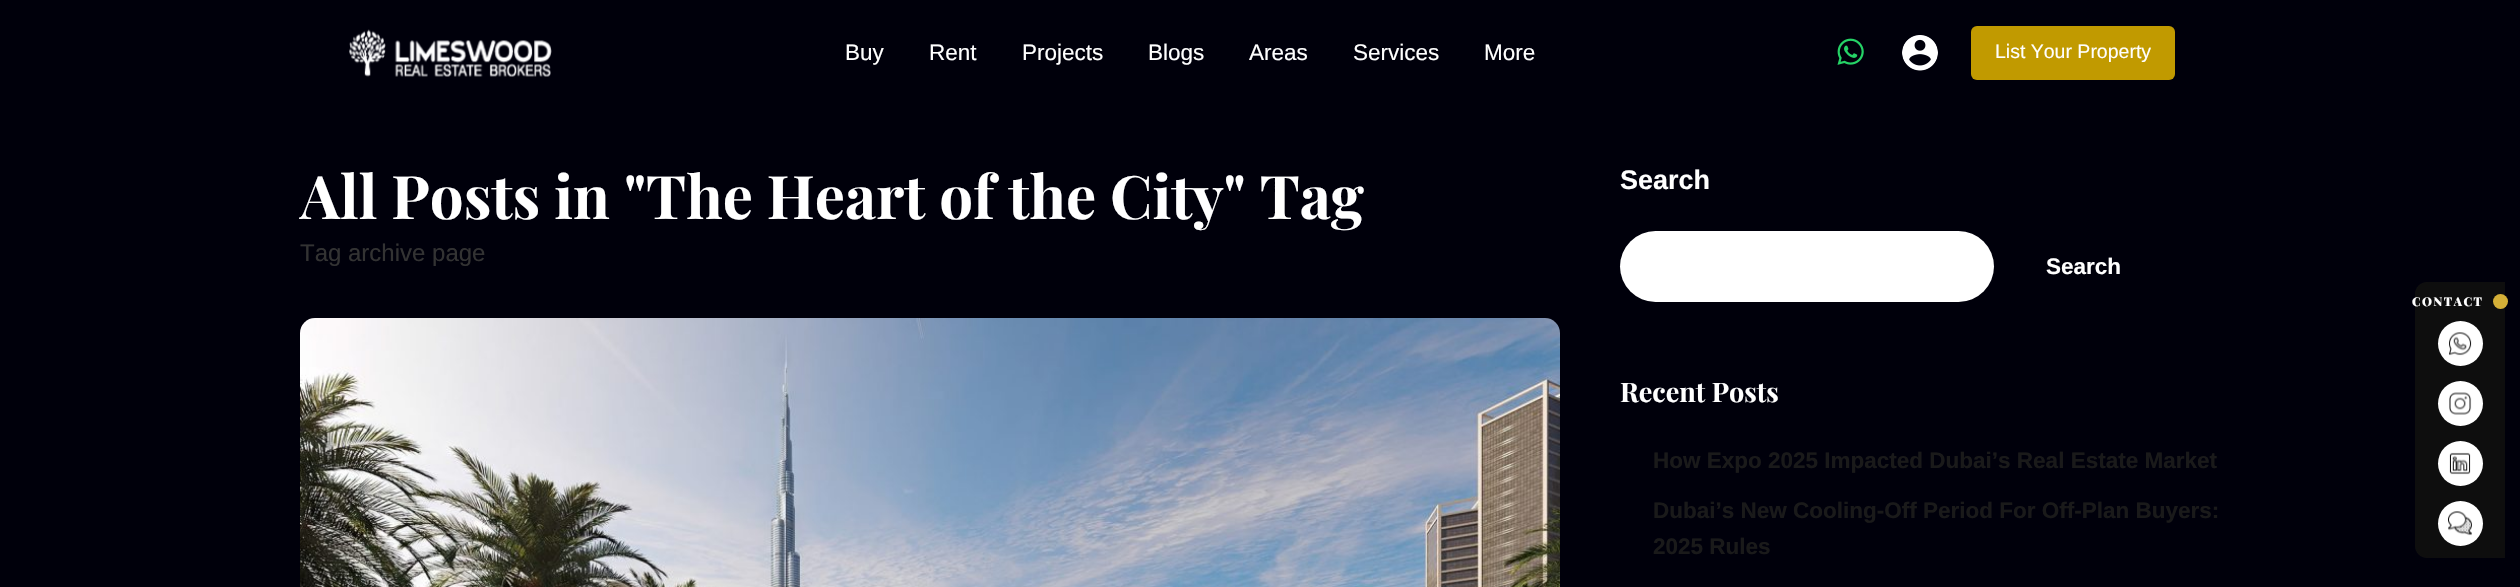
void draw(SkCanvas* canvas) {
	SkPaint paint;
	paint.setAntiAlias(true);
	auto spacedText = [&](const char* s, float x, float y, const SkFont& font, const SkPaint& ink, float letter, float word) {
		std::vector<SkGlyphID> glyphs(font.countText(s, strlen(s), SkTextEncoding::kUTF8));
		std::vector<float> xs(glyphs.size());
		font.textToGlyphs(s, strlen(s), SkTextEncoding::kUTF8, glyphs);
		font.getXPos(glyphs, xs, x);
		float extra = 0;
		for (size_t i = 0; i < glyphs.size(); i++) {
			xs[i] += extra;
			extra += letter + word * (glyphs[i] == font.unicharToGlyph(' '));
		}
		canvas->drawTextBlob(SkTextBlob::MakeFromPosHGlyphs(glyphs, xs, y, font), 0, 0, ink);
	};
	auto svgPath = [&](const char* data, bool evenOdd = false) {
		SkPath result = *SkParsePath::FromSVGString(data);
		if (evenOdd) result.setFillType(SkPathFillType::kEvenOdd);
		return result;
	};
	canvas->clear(0xff00000b);
	canvas->drawImageRect(SkImages::DeferredFromEncodedData(SkData::MakeFromFileName("img1.png")), SkRect::MakeXYWH(349, 29, 203, 48), SkSamplingOptions());
	SkFont f1(fontMgr->matchFamilyStyle("Liberation Sans", SkFontStyle::Normal()), 22.5);
	f1.setSubpixel(true);
	paint.setColor(0xffffffff);
	canvas->drawString("Buy", 845, 60, f1, paint);
	canvas->drawString("Rent", 929, 60, f1, paint);
	canvas->drawString("Projects", 1022, 60, f1, paint);
	canvas->drawString("Blogs", 1148, 60, f1, paint);
	canvas->drawString("Areas", 1249, 60, f1, paint);
	canvas->drawString("Services", 1353, 60, f1, paint);
	canvas->drawString("More", 1484, 60, f1, paint);
	canvas->drawImageRect(SkImages::DeferredFromEncodedData(SkData::MakeFromFileName("img2.png")), SkRect::MakeXYWH(1837, 38, 27, 27), SkSamplingOptions());
	canvas->drawImageRect(SkImages::DeferredFromEncodedData(SkData::MakeFromFileName("img3.png")), SkRect::MakeXYWH(1902, 35, 36, 36), SkSamplingOptions());
	paint.setColor(0xffc19a00);
	canvas->drawRoundRect(SkRect::MakeXYWH(1971, 26, 204, 54), 6, 6, paint);
	SkFont f2(fontMgr->matchFamilyStyle("Liberation Sans", SkFontStyle::Normal()), 19.5);
	f2.setSubpixel(true);
	paint.setColor(0xffffffff);
	canvas->drawString("List Your Property", 1995, 58, f2, paint);
	SkFont f3(fontMgr->matchFamilyStyle("Playfair Display", SkFontStyle::Bold()), 60);
	f3.setSubpixel(true);
	canvas->drawString("All Posts in \"The Heart of the City\" Tag", 300, 219, f3, paint);
	SkFont f4(fontMgr->matchFamilyStyle("Liberation Sans", SkFontStyle::Normal()), 24);
	f4.setSubpixel(true);
	paint.setColor(0xff333333);
	canvas->drawString("Tag archive page", 300, 261, f4, paint);
	canvas->drawImageRect(SkImages::DeferredFromEncodedData(SkData::MakeFromFileName("img4.png")), SkRect::MakeXYWH(300, 318, 1260, 269), SkSamplingOptions());
	SkFont f5(fontMgr->matchFamilyStyle("Liberation Sans", SkFontStyle::Bold()), 27);
	f5.setSubpixel(true);
	paint.setColor(0xffffffff);
	canvas->drawString("Search", 1620, 189, f5, paint);
	canvas->drawRoundRect(SkRect::MakeXYWH(1620, 231, 374, 71), 35.5, 35.5, paint);
	SkFont f6(fontMgr->matchFamilyStyle("Liberation Sans", SkFontStyle::Bold()), 22.5);
	f6.setSubpixel(true);
	canvas->drawString("Search", 2046, 274, f6, paint);
	SkFont f7(fontMgr->matchFamilyStyle("Playfair Display", SkFontStyle::Bold()), 27);
	f7.setSubpixel(true);
	canvas->drawString("Recent Posts", 1620, 402, f7, paint);
	paint.setColor(0xff1a1a1a);
	canvas->drawString("How Expo 2025 Impacted Dubai’s Real Estate Market", 1653, 468, f6, paint);
	canvas->drawString("Dubai’s New Cooling-Off Period For Off-Plan Buyers:", 1653, 518, f6, paint);
	canvas->drawString("2025 Rules", 1653, 554, f6, paint);
	paint.setColor(0xff0e0e0e);
	canvas->drawPath(svgPath("M2427 282H2505V558H2427C2420.5 558 2415 552.5 2415 546V294C2415 287.5 2420.5 282 2427 282Z"), paint);
	SkFont f8(fontMgr->matchFamilyStyle("Playfair Display", SkFontStyle(900, SkFontStyle::kNormal_Width, SkFontStyle::kUpright_Slant)), 12);
	f8.setSubpixel(true);
	paint.setColor(0xffffffff);
	spacedText("CONTACT", 2412, 306, f8, paint, 1.5, 0);
	paint.setColor(0xffd4af37);
	canvas->drawCircle(2500.5, 301.5, 7.5, paint);
	paint.setColor(0xffffffff);
	canvas->drawCircle(2460.5, 343.5, 22.5, paint);
	canvas->drawImageRect(SkImages::DeferredFromEncodedData(SkData::MakeFromFileName("img5.png")), SkRect::MakeXYWH(2449, 332, 23, 24), SkSamplingOptions());
	canvas->drawCircle(2460.5, 403.5, 22.5, paint);
	canvas->drawImageRect(SkImages::DeferredFromEncodedData(SkData::MakeFromFileName("img6.png")), SkRect::MakeXYWH(2449, 392, 23, 23), SkSamplingOptions());
	canvas->drawCircle(2460.5, 463.5, 22.5, paint);
	canvas->drawImageRect(SkImages::DeferredFromEncodedData(SkData::MakeFromFileName("img7.png")), SkRect::MakeXYWH(2449, 452, 22, 23), SkSamplingOptions());
	canvas->drawCircle(2460.5, 523.5, 22.5, paint);
	canvas->drawImageRect(SkImages::DeferredFromEncodedData(SkData::MakeFromFileName("img8.png")), SkRect::MakeXYWH(2448, 511, 24, 25), SkSamplingOptions());
}
